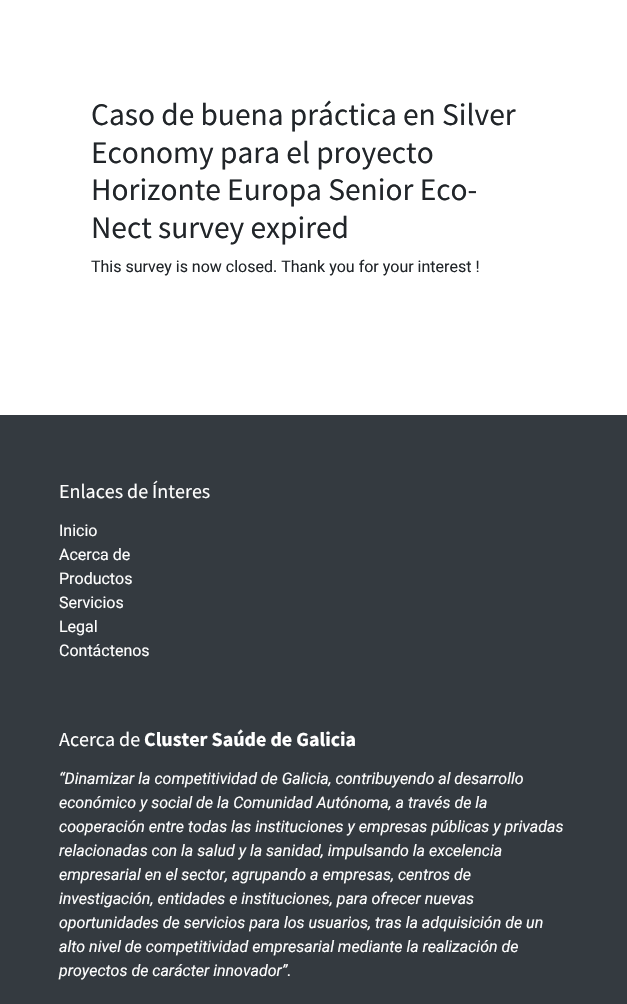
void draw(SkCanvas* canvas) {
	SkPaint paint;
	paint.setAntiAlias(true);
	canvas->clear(0xffffffff);
	SkFont f1(fontMgr->matchFamilyStyle("Source Sans Pro", SkFontStyle::Normal()), 31.4);
	f1.setSubpixel(true);
	paint.setColor(0xff212529);
	canvas->drawString("Caso de buena práctica en Silver", 91, 125, f1, paint);
	canvas->drawString("Economy para el proyecto", 91, 163, f1, paint);
	canvas->drawString("Horizonte Europa Senior Eco-", 91, 200, f1, paint);
	canvas->drawString("Nect survey expired", 91, 238, f1, paint);
	SkFont f2(fontMgr->matchFamilyStyle("Roboto", SkFontStyle::Normal()), 16);
	f2.setSubpixel(true);
	canvas->drawString("This survey is now closed. Thank you for your interest !", 91, 272, f2, paint);
	paint.setColor(0xff343a40);
	canvas->drawRect(SkRect::MakeXYWH(0, 415, 627, 589), paint);
	SkFont f3(fontMgr->matchFamilyStyle("Source Sans Pro", SkFontStyle::Normal()), 20);
	f3.setSubpixel(true);
	paint.setColor(0xffffffff);
	canvas->drawString("Enlaces de Ínteres", 59, 498, f3, paint);
	canvas->drawString("Inicio", 59, 536, f2, paint);
	canvas->drawString("Acerca de", 59, 560, f2, paint);
	canvas->drawString("Productos", 59, 584, f2, paint);
	canvas->drawString("Servicios", 59, 608, f2, paint);
	canvas->drawString("Legal", 59, 632, f2, paint);
	canvas->drawString("Contáctenos", 59, 656, f2, paint);
	canvas->drawString("Acerca de", 59, 746, f3, paint);
	SkFont f4(fontMgr->matchFamilyStyle("Source Sans Pro", SkFontStyle::Bold()), 20);
	f4.setSubpixel(true);
	canvas->drawString("Cluster Saúde de Galicia", 144, 746, f4, paint);
	SkFont f5(fontMgr->matchFamilyStyle("Roboto", SkFontStyle::Italic()), 16);
	f5.setSubpixel(true);
	canvas->drawString("“Dinamizar la competitividad de Galicia, contribuyendo al desarrollo", 59, 784, f5, paint);
	canvas->drawString("económico y social de la Comunidad Autónoma, a través de la", 59, 808, f5, paint);
	canvas->drawString("cooperación entre todas las instituciones y empresas públicas y privadas", 59, 832, f5, paint);
	canvas->drawString("relacionadas con la salud y la sanidad, impulsando la excelencia", 59, 856, f5, paint);
	canvas->drawString("empresarial en el sector, agrupando a empresas, centros de", 59, 880, f5, paint);
	canvas->drawString("investigación, entidades e instituciones, para ofrecer nuevas", 59, 904, f5, paint);
	canvas->drawString("oportunidades de servicios para los usuarios, tras la adquisición de un", 59, 928, f5, paint);
	canvas->drawString("alto nivel de competitividad empresarial mediante la realización de", 59, 952, f5, paint);
	canvas->drawString("proyectos de carácter innovador”.", 59, 976, f5, paint);
}
